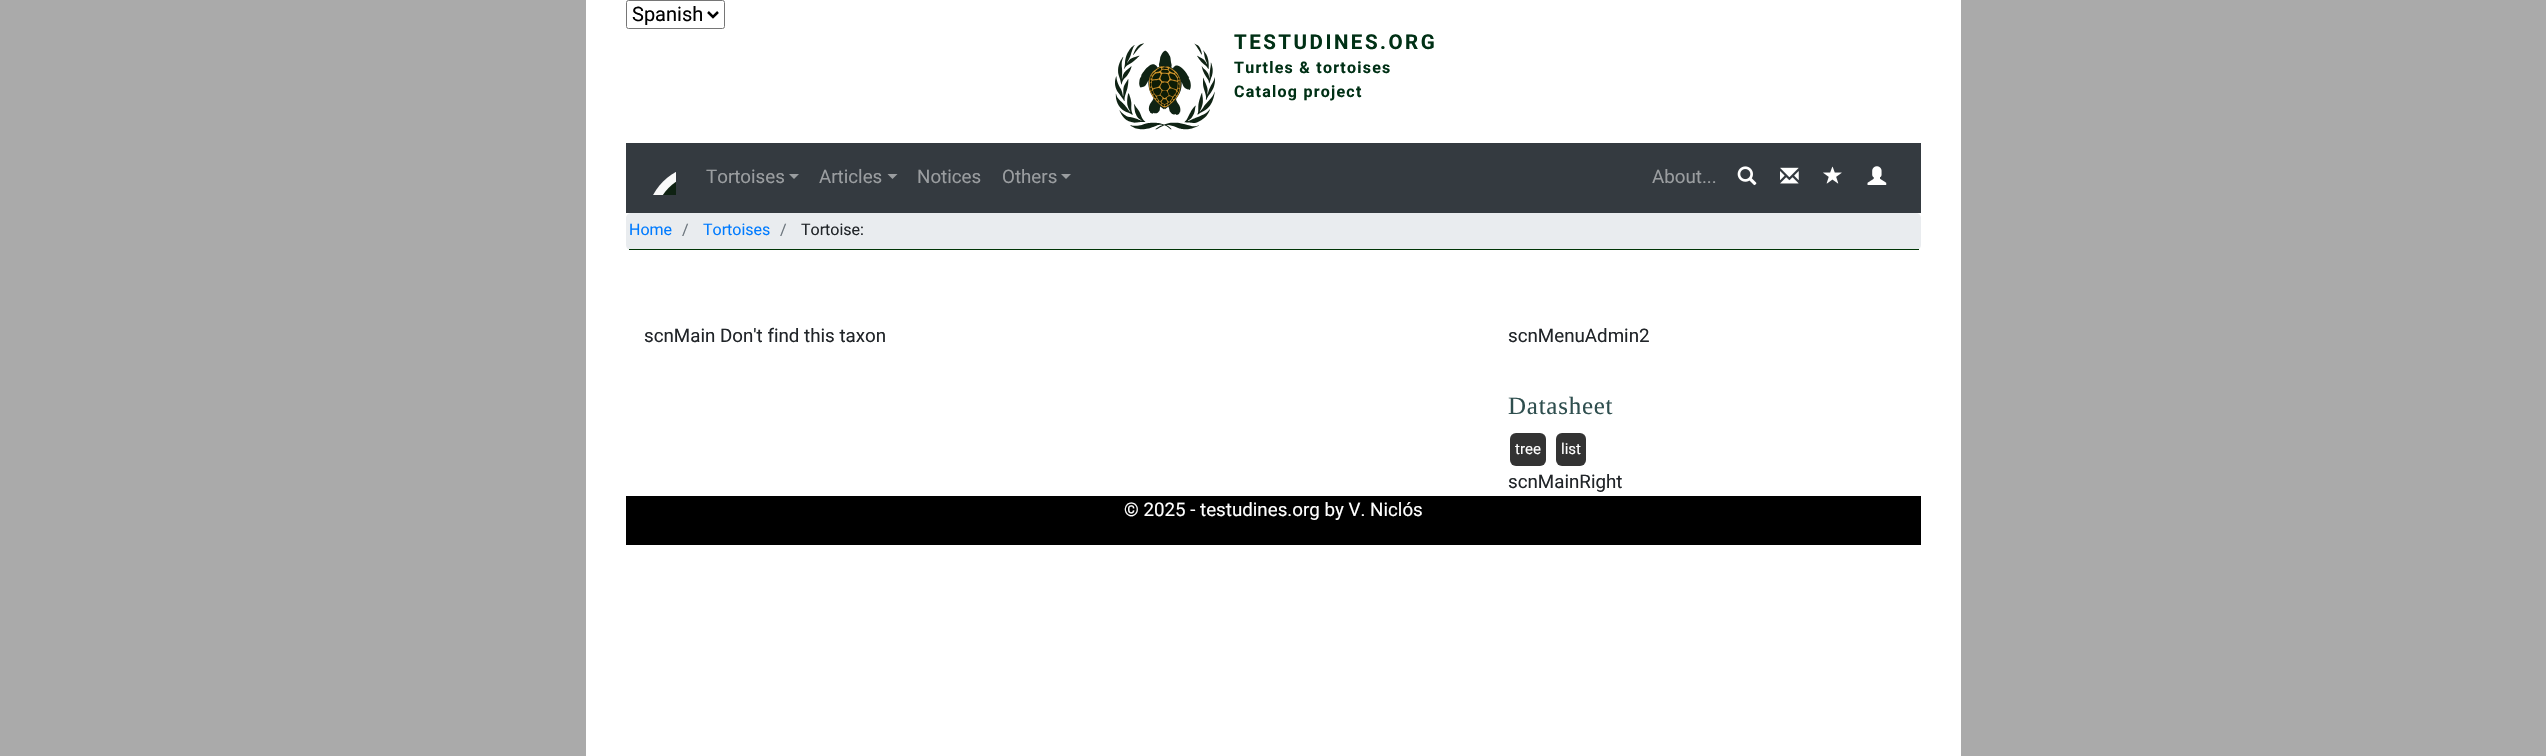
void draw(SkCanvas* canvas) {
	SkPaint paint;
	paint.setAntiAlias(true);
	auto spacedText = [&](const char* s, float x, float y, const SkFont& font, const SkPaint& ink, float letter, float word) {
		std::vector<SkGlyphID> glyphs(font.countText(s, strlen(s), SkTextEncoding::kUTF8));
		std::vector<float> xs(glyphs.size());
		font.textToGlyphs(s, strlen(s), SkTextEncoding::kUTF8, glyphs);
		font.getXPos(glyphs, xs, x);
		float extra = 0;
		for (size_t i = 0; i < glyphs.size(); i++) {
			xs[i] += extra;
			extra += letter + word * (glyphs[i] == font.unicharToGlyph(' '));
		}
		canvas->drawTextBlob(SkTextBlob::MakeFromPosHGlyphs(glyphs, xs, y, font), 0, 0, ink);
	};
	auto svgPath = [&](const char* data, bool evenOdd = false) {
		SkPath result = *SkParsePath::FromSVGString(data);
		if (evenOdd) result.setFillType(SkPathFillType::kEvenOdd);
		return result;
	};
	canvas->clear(0xffaaaaaa);
	paint.setColor(0xffffffff);
	canvas->drawRect(SkRect::MakeXYWH(586, 0, 1375, 756), paint);
	paint.setStroke(true);
	paint.setStrokeWidth(1);
	paint.setColor(0xff767676);
	canvas->drawRoundRect(SkRect::MakeXYWH(626.5, 0.5, 98, 28), 2, 2, paint);
	paint.setStrokeWidth(2.5);
	paint.setColor(0xff000000);
	canvas->drawPath(svgPath("M708 12L713 17L718 12"), paint);
	SkFont f1(fontMgr->matchFamilyStyle("Roboto", SkFontStyle::Normal()), 20);
	f1.setSubpixel(true);
	paint.setStroke(false);
	canvas->drawString("Spanish", 632, 21, f1, paint);
	canvas->drawImageRect(SkImages::DeferredFromEncodedData(SkData::MakeFromFileName("img1.png")), SkRect::MakeXYWH(1115, 43, 100, 87), SkSamplingOptions());
	SkFont f2(fontMgr->matchFamilyStyle("Roboto", SkFontStyle::Bold()), 20.5);
	f2.setSubpixel(true);
	paint.setColor(0xff003015);
	spacedText("TESTUDINES.ORG", 1234, 49, f2, paint, 2.5, 0);
	SkFont f3(fontMgr->matchFamilyStyle("Roboto", SkFontStyle::Bold()), 16);
	f3.setSubpixel(true);
	spacedText("Turtles & tortoises", 1234, 73, f3, paint, 1.25, 0);
	spacedText("Catalog project", 1234, 97, f3, paint, 1.25, 0);
	paint.setColor(0xff343a40);
	canvas->drawRect(SkRect::MakeXYWH(626, 143, 1295, 70), paint);
	canvas->drawImageRect(SkImages::DeferredFromEncodedData(SkData::MakeFromFileName("img2.png")), SkRect::MakeXYWH(653, 172, 23, 23), SkSamplingOptions());
	SkFont f4(fontMgr->matchFamilyStyle("Roboto", SkFontStyle::Normal()), 18.75);
	f4.setSubpixel(true);
	paint.setColor(0xff9a9da0);
	canvas->drawString("Tortoises", 706, 183, f4, paint);
	canvas->drawPath(svgPath("M789 174H799L794 179Z"), paint);
	canvas->drawString("Articles", 819, 183, f4, paint);
	canvas->drawPath(svgPath("M887.5 174H897.5L892.5 179Z"), paint);
	canvas->drawString("Notices", 917, 183, f4, paint);
	canvas->drawString("Others", 1002, 183, f4, paint);
	canvas->drawPath(svgPath("M1061 174H1071L1066 179Z"), paint);
	canvas->drawString("About...", 1652, 183, f4, paint);
	canvas->drawImageRect(SkImages::DeferredFromEncodedData(SkData::MakeFromFileName("img3.png")), SkRect::MakeXYWH(1737, 166, 20, 20), SkSamplingOptions());
	canvas->drawImageRect(SkImages::DeferredFromEncodedData(SkData::MakeFromFileName("img4.png")), SkRect::MakeXYWH(1780, 167, 19, 17), SkSamplingOptions());
	canvas->drawImageRect(SkImages::DeferredFromEncodedData(SkData::MakeFromFileName("img5.png")), SkRect::MakeXYWH(1823, 166, 19, 18), SkSamplingOptions());
	canvas->drawImageRect(SkImages::DeferredFromEncodedData(SkData::MakeFromFileName("img6.png")), SkRect::MakeXYWH(1867, 166, 20, 19), SkSamplingOptions());
	paint.setColor(0xffe9ecef);
	canvas->drawRoundRect(SkRect::MakeXYWH(626, 213, 1295, 37), 5, 5, paint);
	paint.setColor(0xff003505);
	canvas->drawRect(SkRect::MakeXYWH(629, 249, 1290, 1), paint);
	SkFont f5(fontMgr->matchFamilyStyle("Roboto", SkFontStyle::Normal()), 16);
	f5.setSubpixel(true);
	paint.setColor(0xff007bff);
	canvas->drawString("Home", 629, 235, f5, paint);
	paint.setColor(0xff6c757d);
	canvas->drawString("/", 682, 235, f5, paint);
	paint.setColor(0xff007bff);
	canvas->drawString("Tortoises", 703, 235, f5, paint);
	paint.setColor(0xff6c757d);
	canvas->drawString("/", 780, 235, f5, paint);
	paint.setColor(0xff212529);
	canvas->drawString("Tortoise:", 801, 235, f5, paint);
	canvas->drawString("scnMain Don't find this taxon", 644, 342, f4, paint);
	canvas->drawString("scnMenuAdmin2", 1508, 342, f4, paint);
	SkFont f6(fontMgr->matchFamilyStyle("Liberation Serif", SkFontStyle::Normal()), 25);
	f6.setSubpixel(true);
	paint.setColor(0xff2f4f4f);
	spacedText("Datasheet", 1508, 414, f6, paint, 0.75, 0);
	paint.setColor(0xff333333);
	canvas->drawRoundRect(SkRect::MakeXYWH(1510, 433, 36, 33), 6, 6, paint);
	SkFont f7(fontMgr->matchFamilyStyle("Roboto", SkFontStyle::Normal()), 15);
	f7.setSubpixel(true);
	paint.setColor(0xffffffff);
	canvas->drawString("tree", 1515, 454, f7, paint);
	paint.setColor(0xff333333);
	canvas->drawRoundRect(SkRect::MakeXYWH(1556, 433, 30, 33), 6, 6, paint);
	paint.setColor(0xffffffff);
	canvas->drawString("list", 1561, 454, f7, paint);
	paint.setColor(0xff212529);
	canvas->drawString("scnMainRight", 1508, 488, f4, paint);
	paint.setColor(0xff000000);
	canvas->drawRect(SkRect::MakeXYWH(626, 496, 1295, 49), paint);
	paint.setColor(0xffffffff);
	canvas->drawString("© 2025 - testudines.org by V. Niclós", 1124, 516, f4, paint);
}
